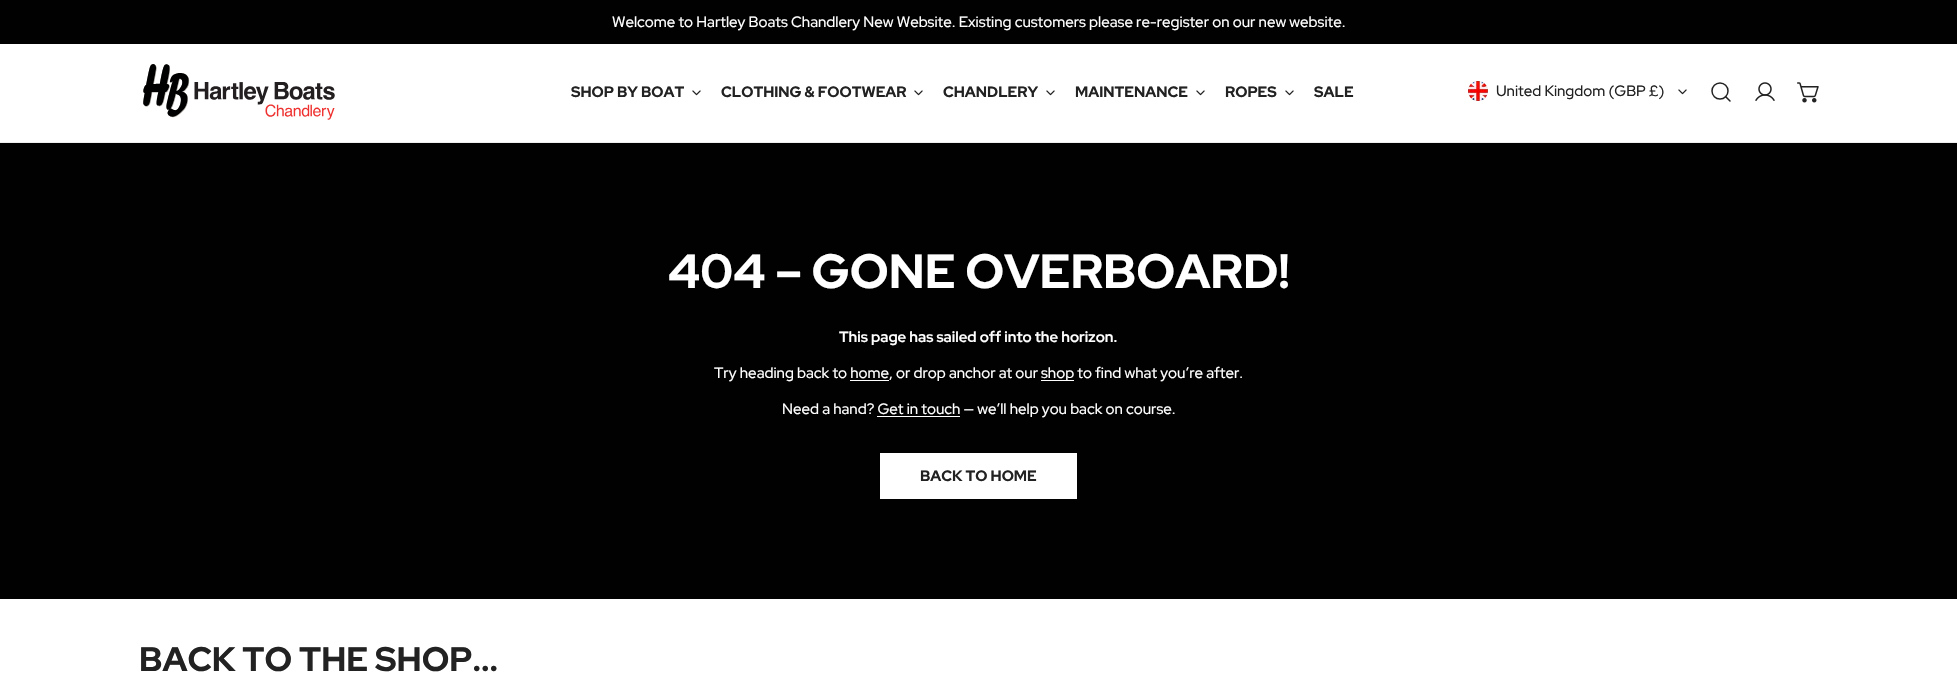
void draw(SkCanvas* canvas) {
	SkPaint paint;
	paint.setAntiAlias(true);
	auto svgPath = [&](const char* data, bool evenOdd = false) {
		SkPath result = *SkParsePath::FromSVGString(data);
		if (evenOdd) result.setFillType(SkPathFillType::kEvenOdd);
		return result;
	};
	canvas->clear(0xffffffff);
	paint.setColor(0xff010101);
	canvas->drawRect(SkRect::MakeXYWH(0, 0, 1957, 44), paint);
	SkFont f1(fontMgr->matchFamilyStyle("Red Hat Display", SkFontStyle(500, SkFontStyle::kNormal_Width, SkFontStyle::kUpright_Slant)), 15);
	f1.setSubpixel(true);
	paint.setColor(0xffffffff);
	canvas->drawString("Welcome to Hartley Boats Chandlery New Website. Existing customers please re-register on our new website.", 612, 27, f1, paint);
	paint.setColor(0xffeeeeee);
	canvas->drawRect(SkRect::MakeXYWH(0, 142, 1957, 1), paint);
	canvas->drawImageRect(SkImages::DeferredFromEncodedData(SkData::MakeFromFileName("img1.png")), SkRect::MakeXYWH(143, 64, 192, 56), SkSamplingOptions());
	SkFont f2(fontMgr->matchFamilyStyle("Red Hat Display", SkFontStyle(800, SkFontStyle::kNormal_Width, SkFontStyle::kUpright_Slant)), 15);
	f2.setSubpixel(true);
	paint.setColor(0xff222222);
	canvas->drawString("SHOP BY BOAT", 571, 97, f2, paint);
	canvas->drawImageRect(SkImages::DeferredFromEncodedData(SkData::MakeFromFileName("img2.png")), SkRect::MakeXYWH(692, 90, 9, 6), SkSamplingOptions());
	canvas->drawString("CLOTHING & FOOTWEAR", 721, 97, f2, paint);
	canvas->drawImageRect(SkImages::DeferredFromEncodedData(SkData::MakeFromFileName("img2.png")), SkRect::MakeXYWH(914, 90, 9, 6), SkSamplingOptions());
	canvas->drawString("CHANDLERY", 943, 97, f2, paint);
	canvas->drawImageRect(SkImages::DeferredFromEncodedData(SkData::MakeFromFileName("img2.png")), SkRect::MakeXYWH(1046, 90, 9, 6), SkSamplingOptions());
	canvas->drawString("MAINTENANCE", 1075, 97, f2, paint);
	canvas->drawImageRect(SkImages::DeferredFromEncodedData(SkData::MakeFromFileName("img2.png")), SkRect::MakeXYWH(1196, 90, 9, 6), SkSamplingOptions());
	canvas->drawString("ROPES", 1225, 97, f2, paint);
	canvas->drawImageRect(SkImages::DeferredFromEncodedData(SkData::MakeFromFileName("img2.png")), SkRect::MakeXYWH(1285, 90, 9, 6), SkSamplingOptions());
	canvas->drawString("SALE", 1314, 97, f2, paint);
	canvas->drawImageRect(SkImages::DeferredFromEncodedData(SkData::MakeFromFileName("img3.png")), SkRect::MakeXYWH(1468, 81, 20, 20), SkSamplingOptions());
	canvas->drawString("United Kingdom (GBP £)", 1496, 96, f1, paint);
	canvas->drawImageRect(SkImages::DeferredFromEncodedData(SkData::MakeFromFileName("img2.png")), SkRect::MakeXYWH(1678, 89, 9, 6), SkSamplingOptions());
	paint.setStroke(true);
	paint.setStrokeWidth(1.5);
	canvas->drawCircle(1720, 91, 8, paint);
	paint.setStrokeCap(SkPaint::kRound_Cap);
	paint.setStrokeJoin(SkPaint::kRound_Join);
	canvas->drawPath(svgPath("M1730 101L1725.5 96.5"), paint);
	canvas->drawImageRect(SkImages::DeferredFromEncodedData(SkData::MakeFromFileName("img4.png")), SkRect::MakeXYWH(1755, 82, 20, 19), SkSamplingOptions());
	canvas->drawImageRect(SkImages::DeferredFromEncodedData(SkData::MakeFromFileName("img5.png")), SkRect::MakeXYWH(1797, 82, 22, 21), SkSamplingOptions());
	paint.setStroke(false);
	paint.setColor(0xff010101);
	canvas->drawRect(SkRect::MakeXYWH(0, 143, 1957, 456), paint);
	SkFont f3(fontMgr->matchFamilyStyle("Red Hat Display", SkFontStyle(800, SkFontStyle::kNormal_Width, SkFontStyle::kUpright_Slant)), 48);
	f3.setSubpixel(true);
	paint.setColor(0xffffffff);
	canvas->drawString("404 – GONE OVERBOARD!", 668, 288, f3, paint);
	SkFont f4(fontMgr->matchFamilyStyle("Red Hat Display", SkFontStyle::Bold()), 15);
	f4.setSubpixel(true);
	canvas->drawString("This page has sailed off into the horizon.", 839, 342, f4, paint);
	canvas->drawString("Try heading back to home, or drop anchor at our", 714, 378, f1, paint);
	canvas->drawRect(SkRect::MakeXYWH(1041, 380, 33, 1), paint);
	canvas->drawString("shop to find what you’re after.", 1041, 378, f1, paint);
	canvas->drawRect(SkRect::MakeXYWH(850, 380, 39, 1), paint);
	canvas->drawString("Need a hand? Get in touch — we’ll help you back on course.", 782, 414, f1, paint);
	canvas->drawRect(SkRect::MakeXYWH(877, 416, 83, 1), paint);
	canvas->drawRect(SkRect::MakeXYWH(880, 453, 197, 46), paint);
	paint.setColor(0xff222222);
	canvas->drawString("BACK TO HOME", 920, 481, f2, paint);
	SkFont f5(fontMgr->matchFamilyStyle("Red Hat Display", SkFontStyle(800, SkFontStyle::kNormal_Width, SkFontStyle::kUpright_Slant)), 34);
	f5.setSubpixel(true);
	canvas->drawString("BACK TO THE SHOP...", 139, 671, f5, paint);
}
